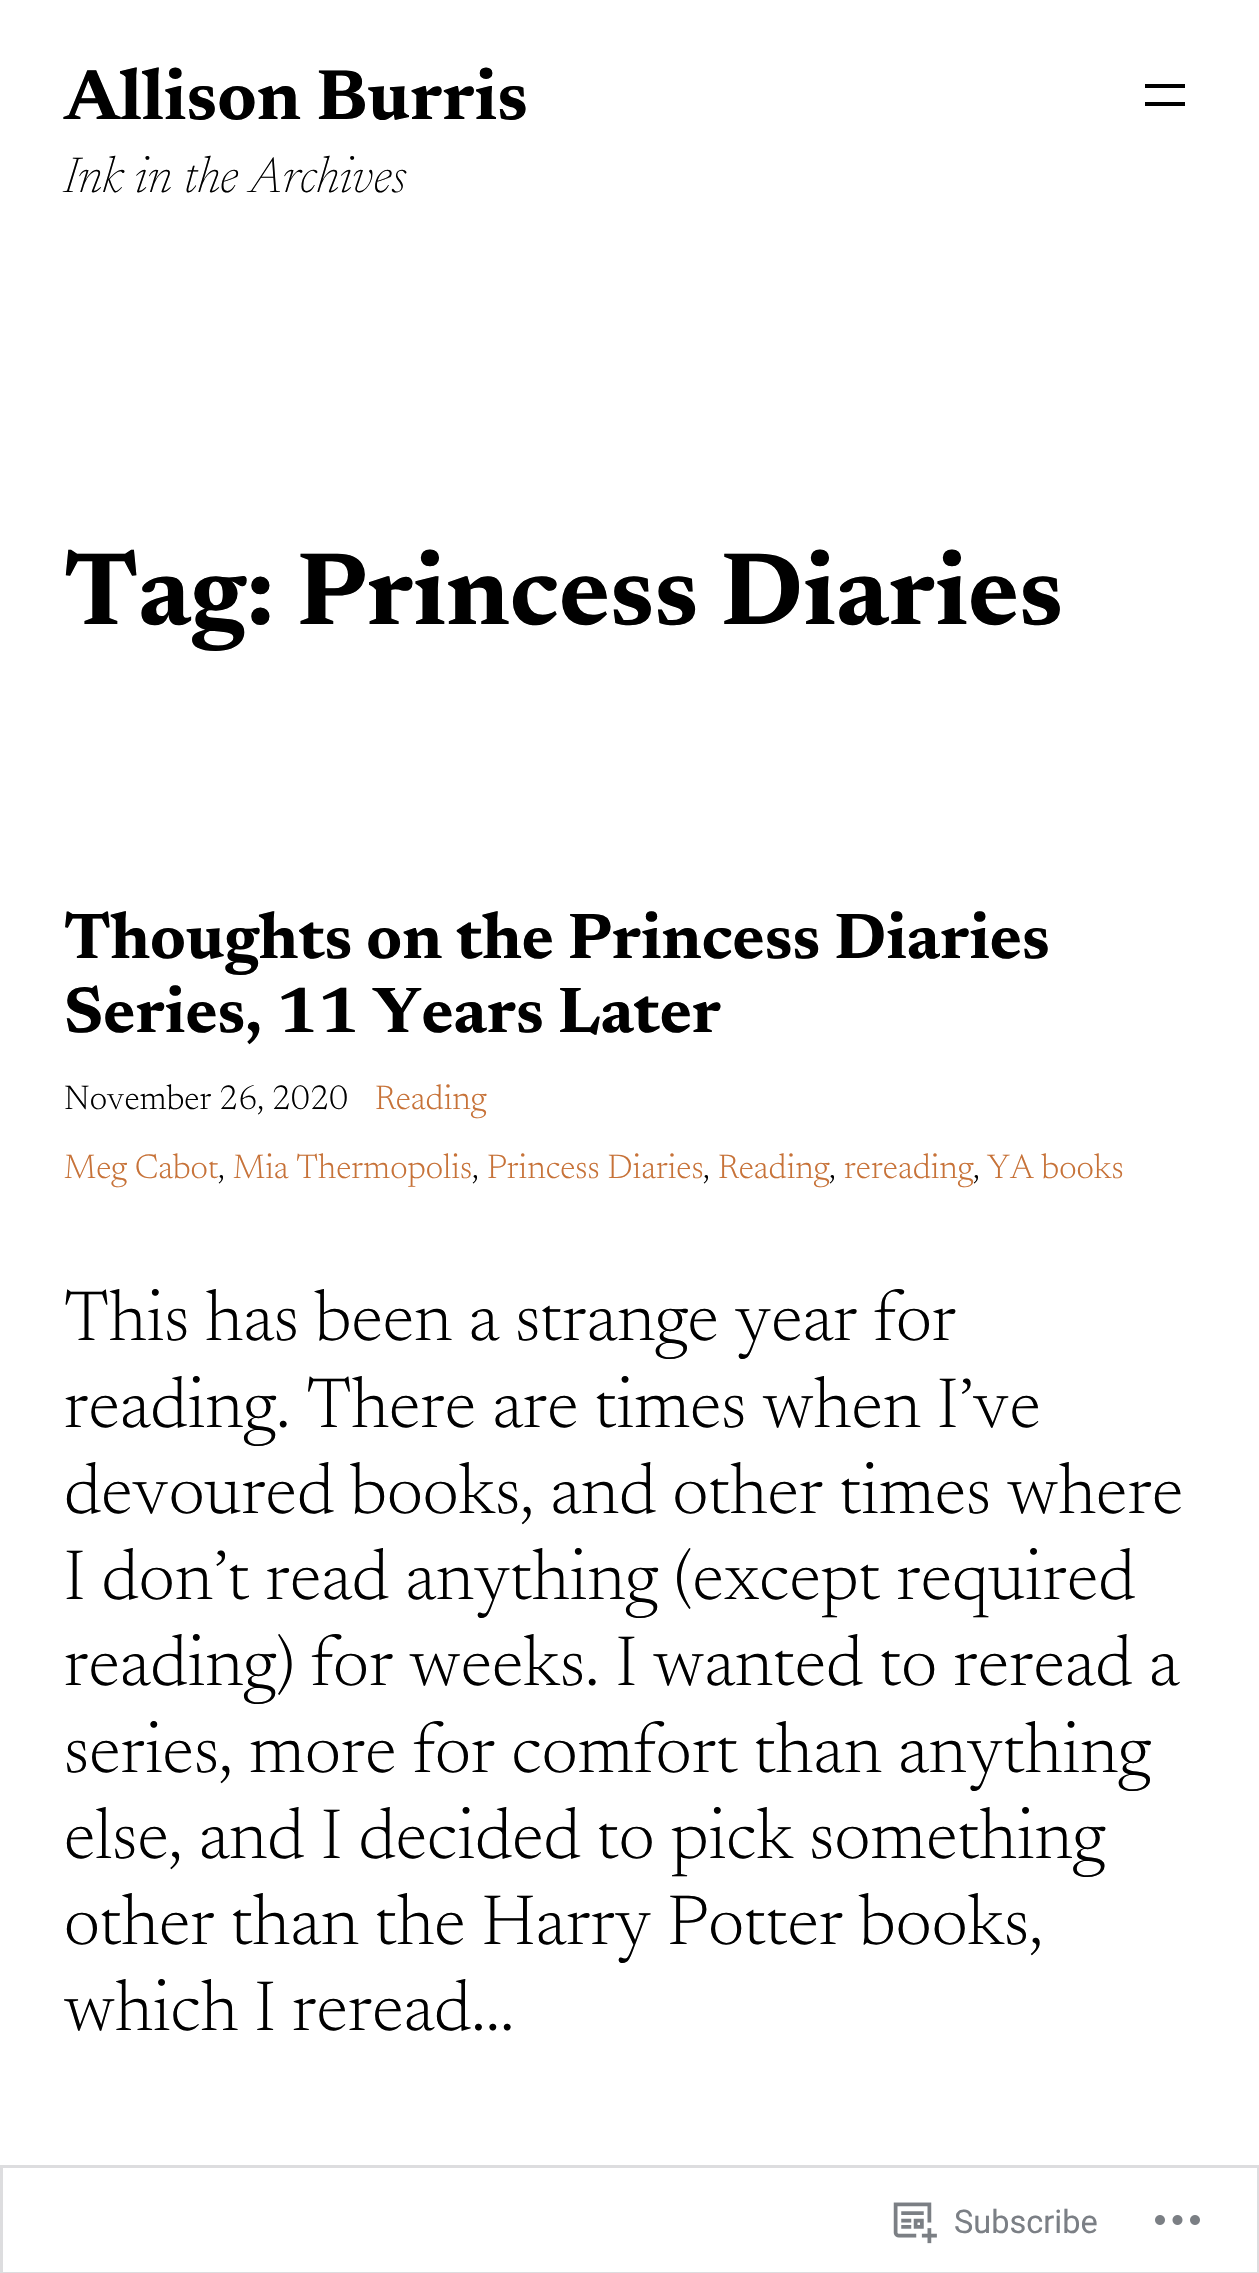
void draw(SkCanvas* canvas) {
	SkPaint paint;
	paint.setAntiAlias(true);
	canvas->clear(0xffffffff);
	SkFont f1(fontMgr->matchFamilyStyle("Newsreader", SkFontStyle::Bold()), 71.9);
	f1.setSubpixel(true);
	paint.setColor(0xff000000);
	canvas->drawString("Allison Burris", 64, 119, f1, paint);
	SkFont f2(fontMgr->matchFamilyStyle("Newsreader", SkFontStyle(200, SkFontStyle::kNormal_Width, SkFontStyle::kItalic_Slant)), 51);
	f2.setSubpixel(true);
	canvas->drawString("Ink in the Archives", 64, 192, f2, paint);
	canvas->drawRect(SkRect::MakeXYWH(1145, 84, 40, 4), paint);
	canvas->drawRect(SkRect::MakeXYWH(1145, 102, 40, 4), paint);
	SkFont f3(fontMgr->matchFamilyStyle("Newsreader", SkFontStyle::Bold()), 103.75);
	f3.setSubpixel(true);
	canvas->drawString("Tag: Princess Diaries", 64, 624, f3, paint);
	SkFont f4(fontMgr->matchFamilyStyle("Newsreader", SkFontStyle::Bold()), 65.25);
	f4.setSubpixel(true);
	canvas->drawString("Thoughts on the Princess Diaries", 64, 958, f4, paint);
	canvas->drawString("Series, 11 Years Later", 64, 1032, f4, paint);
	SkFont f5(fontMgr->matchFamilyStyle("Newsreader", SkFontStyle(300, SkFontStyle::kNormal_Width, SkFontStyle::kUpright_Slant)), 34.75);
	f5.setSubpixel(true);
	canvas->drawString("November 26, 2020", 64, 1109, f5, paint);
	paint.setColor(0xffc77238);
	canvas->drawString("Reading", 375, 1109, f5, paint);
	canvas->drawString("Meg Cabot", 64, 1178, f5, paint);
	paint.setColor(0xff000000);
	canvas->drawString(",", 218, 1178, f5, paint);
	paint.setColor(0xffc77238);
	canvas->drawString("Mia Thermopolis", 233, 1178, f5, paint);
	paint.setColor(0xff000000);
	canvas->drawString(",", 472, 1178, f5, paint);
	paint.setColor(0xffc77238);
	canvas->drawString("Princess Diaries", 487, 1178, f5, paint);
	paint.setColor(0xff000000);
	canvas->drawString(",", 703, 1178, f5, paint);
	paint.setColor(0xffc77238);
	canvas->drawString("Reading", 718, 1178, f5, paint);
	paint.setColor(0xff000000);
	canvas->drawString(",", 829, 1178, f5, paint);
	paint.setColor(0xffc77238);
	canvas->drawString("rereading", 844, 1178, f5, paint);
	paint.setColor(0xff000000);
	canvas->drawString(",", 973, 1178, f5, paint);
	paint.setColor(0xffc77238);
	canvas->drawString("YA books", 987, 1178, f5, paint);
	SkFont f6(fontMgr->matchFamilyStyle("Newsreader", SkFontStyle(300, SkFontStyle::kNormal_Width, SkFontStyle::kUpright_Slant)), 71.9);
	f6.setSubpixel(true);
	paint.setColor(0xff000000);
	canvas->drawString("This has been a strange year for", 64, 1340, f6, paint);
	canvas->drawString("reading. There are times when I’ve", 64, 1427, f6, paint);
	canvas->drawString("devoured books, and other times where", 64, 1513, f6, paint);
	canvas->drawString("I don’t read anything (except required", 64, 1599, f6, paint);
	canvas->drawString("reading) for weeks. I wanted to reread a", 64, 1685, f6, paint);
	canvas->drawString("series, more for comfort than anything", 64, 1772, f6, paint);
	canvas->drawString("else, and I decided to pick something", 64, 1858, f6, paint);
	canvas->drawString("other than the Harry Potter books,", 64, 1944, f6, paint);
	canvas->drawString("which I reread…", 64, 2030, f6, paint);
	paint.setStroke(true);
	paint.setStrokeWidth(3);
	paint.setColor(0xffdddddf);
	canvas->drawRect(SkRect::MakeXYWH(1.5, 2166.5, 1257, 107), paint);
	canvas->drawImageRect(SkImages::DeferredFromEncodedData(SkData::MakeFromFileName("img1.png")), SkRect::MakeXYWH(893, 2202, 44, 42), SkSamplingOptions());
	SkFont f7(fontMgr->matchFamilyStyle("Roboto", SkFontStyle::Normal()), 32.5);
	f7.setSubpixel(true);
	paint.setStroke(false);
	paint.setColor(0xff7b7f85);
	canvas->drawString("Subscribe", 954, 2233, f7, paint);
	canvas->drawImageRect(SkImages::DeferredFromEncodedData(SkData::MakeFromFileName("img2.png")), SkRect::MakeXYWH(1155, 2215, 45, 10), SkSamplingOptions());
}
